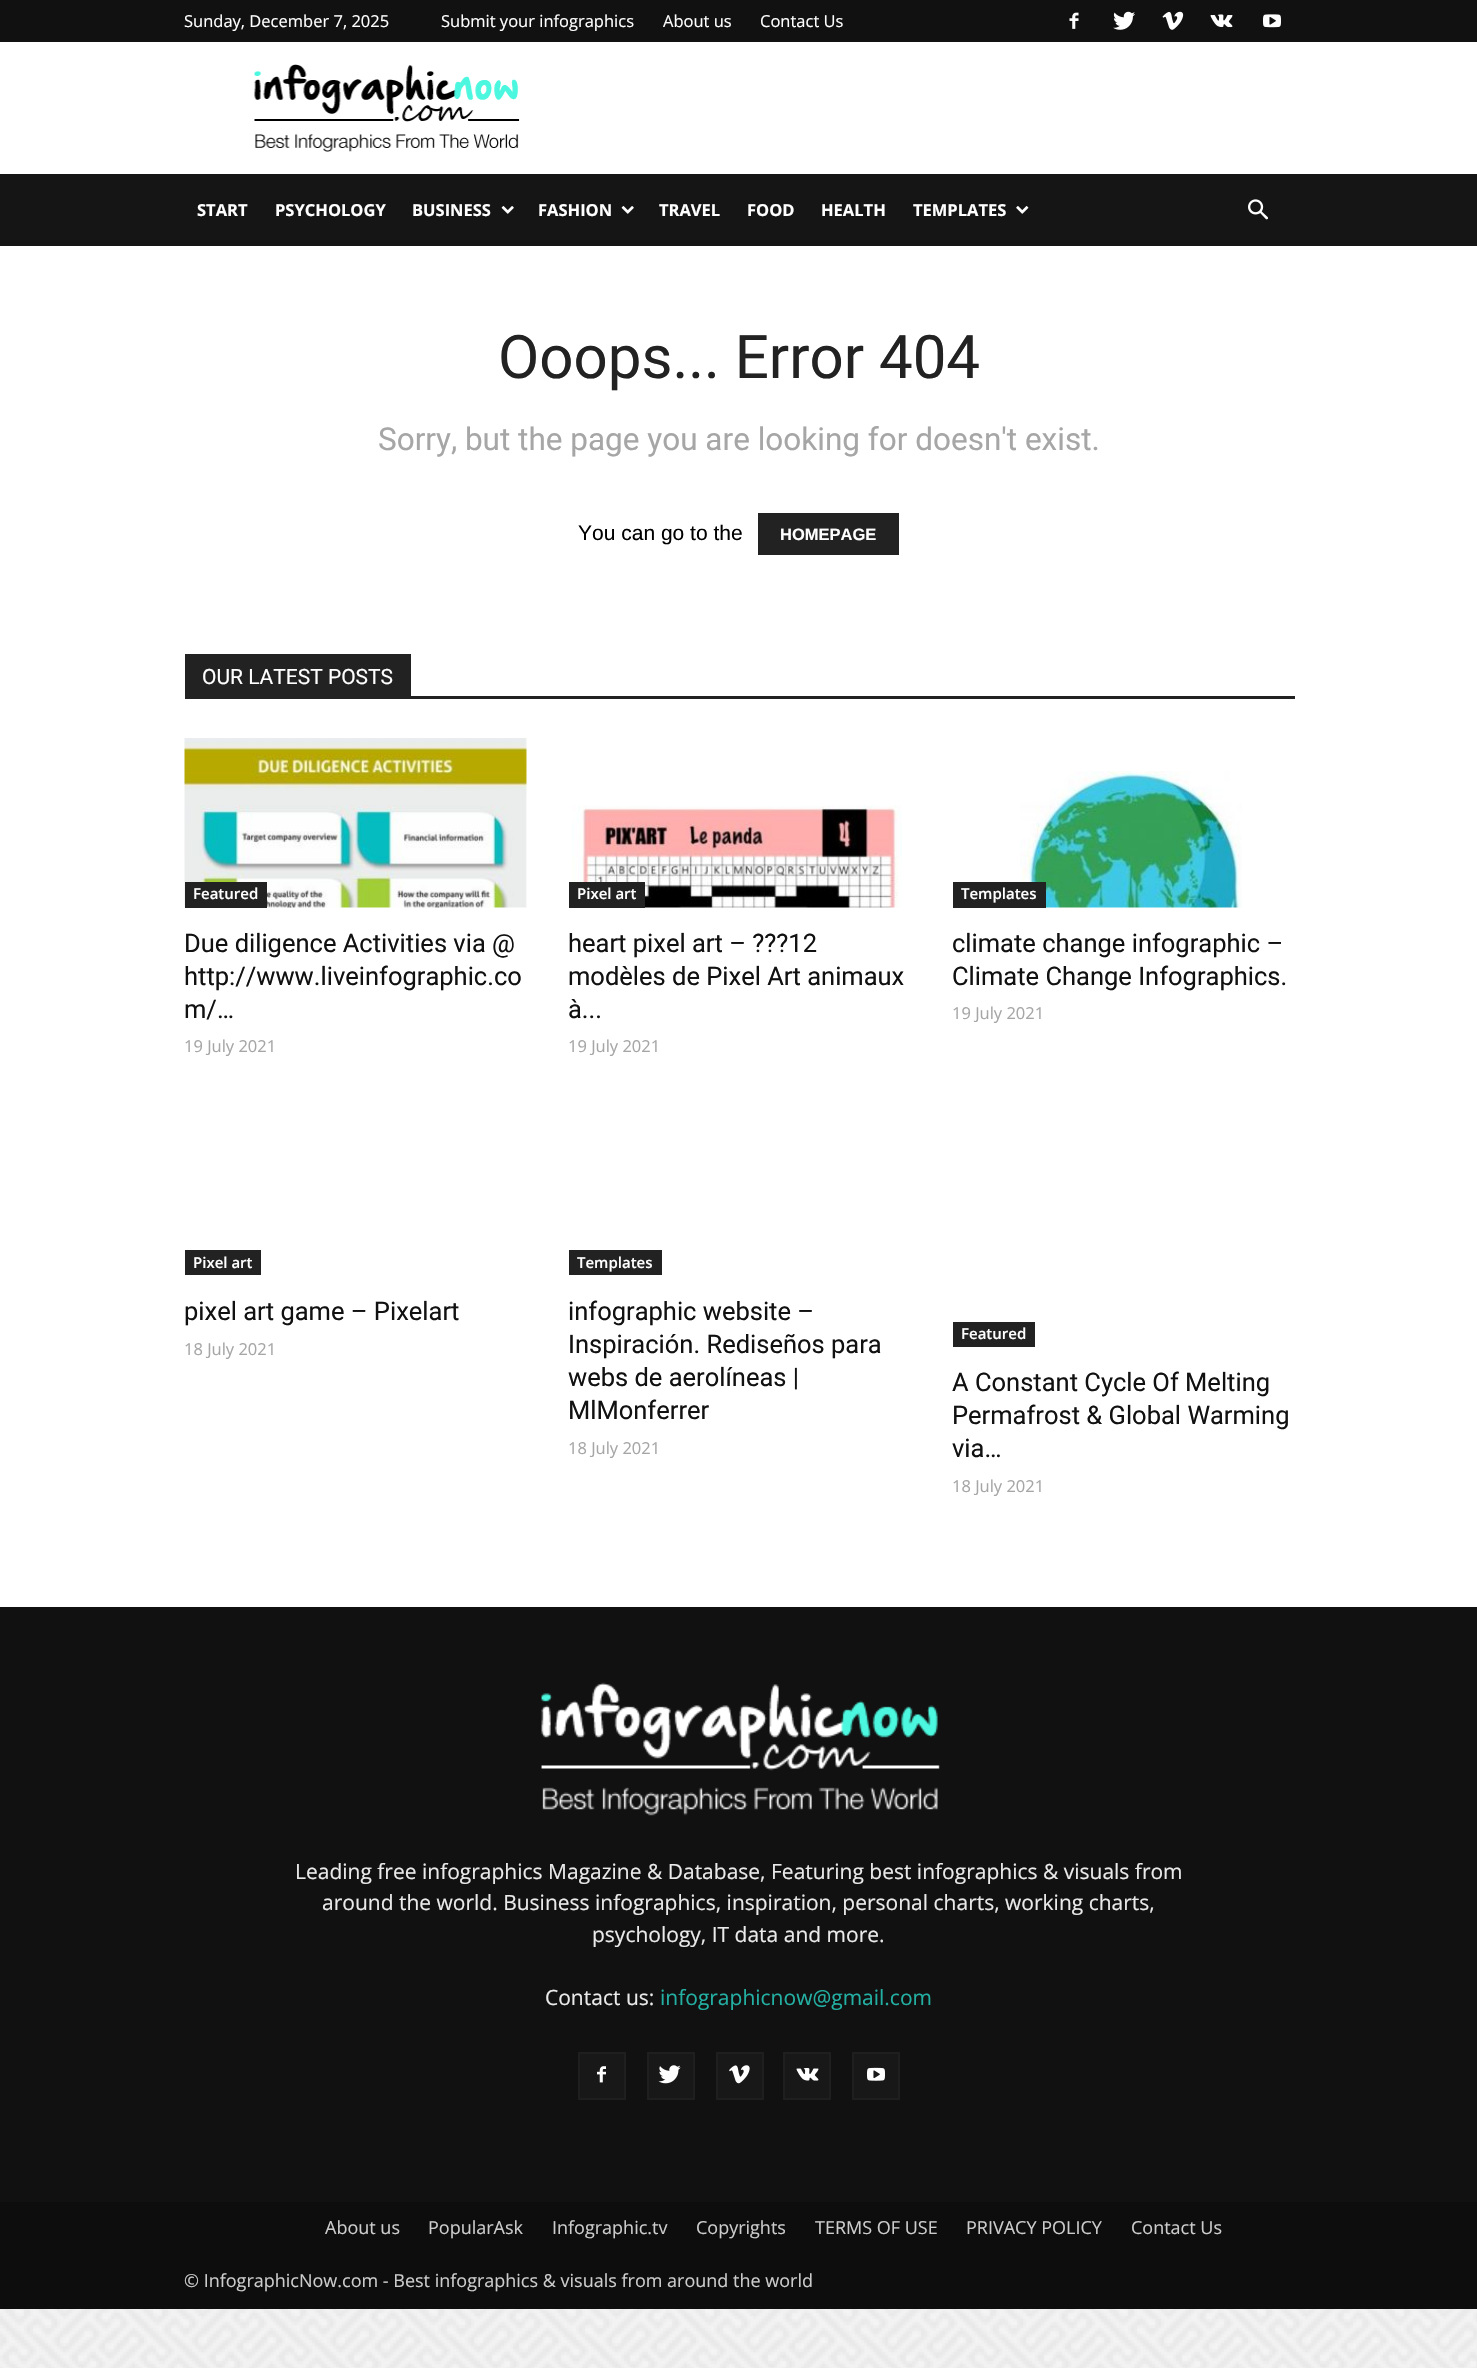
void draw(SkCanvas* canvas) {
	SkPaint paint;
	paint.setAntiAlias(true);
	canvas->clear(0xffffffff);
	canvas->drawImageRect(SkImages::DeferredFromEncodedData(SkData::MakeFromFileName("img1.png")), SkRect::MakeXYWH(0, 2309, 1477, 59), SkSamplingOptions());
	paint.setColor(0xff111111);
	canvas->drawRect(SkRect::MakeXYWH(0, 0, 1477, 42), paint);
	SkFont f1(fontMgr->matchFamilyStyle("Open Sans", SkFontStyle::Normal()), 16.5);
	f1.setSubpixel(true);
	paint.setColor(0xffffffff);
	canvas->drawString("Sunday, December 7, 2025", 184, 27, f1, paint);
	canvas->drawString("Submit your infographics", 441, 27, f1, paint);
	canvas->drawString("About us", 663, 27, f1, paint);
	canvas->drawString("Contact Us", 760, 27, f1, paint);
	canvas->drawImageRect(SkImages::DeferredFromEncodedData(SkData::MakeFromFileName("img2.png")), SkRect::MakeXYWH(1069, 12, 10, 17), SkSamplingOptions());
	canvas->drawImageRect(SkImages::DeferredFromEncodedData(SkData::MakeFromFileName("img3.png")), SkRect::MakeXYWH(1113, 11, 22, 19), SkSamplingOptions());
	canvas->drawImageRect(SkImages::DeferredFromEncodedData(SkData::MakeFromFileName("img4.png")), SkRect::MakeXYWH(1162, 11, 22, 19), SkSamplingOptions());
	canvas->drawImageRect(SkImages::DeferredFromEncodedData(SkData::MakeFromFileName("img5.png")), SkRect::MakeXYWH(1210, 14, 23, 14), SkSamplingOptions());
	canvas->drawImageRect(SkImages::DeferredFromEncodedData(SkData::MakeFromFileName("img6.png")), SkRect::MakeXYWH(1263, 14, 18, 14), SkSamplingOptions());
	canvas->drawImageRect(SkImages::DeferredFromEncodedData(SkData::MakeFromFileName("img7.png")), SkRect::MakeXYWH(254, 64, 266, 88), SkSamplingOptions());
	paint.setColor(0xff151515);
	canvas->drawRect(SkRect::MakeXYWH(0, 174, 1477, 72), paint);
	SkFont f2(fontMgr->matchFamilyStyle("Open Sans", SkFontStyle::Bold()), 16.5);
	f2.setSubpixel(true);
	paint.setColor(0xffffffff);
	canvas->drawString("START", 197, 216, f2, paint);
	canvas->drawString("PSYCHOLOGY", 275, 216, f2, paint);
	canvas->drawString("BUSINESS", 412, 216, f2, paint);
	canvas->drawImageRect(SkImages::DeferredFromEncodedData(SkData::MakeFromFileName("img8.png")), SkRect::MakeXYWH(501, 206, 13, 8), SkSamplingOptions());
	canvas->drawString("FASHION", 538, 216, f2, paint);
	canvas->drawImageRect(SkImages::DeferredFromEncodedData(SkData::MakeFromFileName("img8.png")), SkRect::MakeXYWH(621, 206, 13, 8), SkSamplingOptions());
	canvas->drawString("TRAVEL", 659, 216, f2, paint);
	canvas->drawString("FOOD", 747, 216, f2, paint);
	canvas->drawString("HEALTH", 821, 216, f2, paint);
	canvas->drawString("TEMPLATES", 913, 216, f2, paint);
	canvas->drawImageRect(SkImages::DeferredFromEncodedData(SkData::MakeFromFileName("img9.png")), SkRect::MakeXYWH(1016, 206, 13, 8), SkSamplingOptions());
	canvas->drawImageRect(SkImages::DeferredFromEncodedData(SkData::MakeFromFileName("img10.png")), SkRect::MakeXYWH(1248, 199, 20, 21), SkSamplingOptions());
	SkFont f3(fontMgr->matchFamilyStyle("Roboto", SkFontStyle::Normal()), 60);
	f3.setSubpixel(true);
	paint.setColor(0xff222222);
	canvas->drawString("Ooops... Error 404", 498, 378, f3, paint);
	SkFont f4(fontMgr->matchFamilyStyle("Roboto", SkFontStyle::Normal()), 31.5);
	f4.setSubpixel(true);
	paint.setColor(0xffa6a6a6);
	canvas->drawString("Sorry, but the page you are looking for doesn't exist.", 378, 450, f4, paint);
	SkFont f5(fontMgr->matchFamilyStyle("Liberation Sans", SkFontStyle::Normal()), 21);
	f5.setSubpixel(true);
	paint.setColor(0xff000000);
	canvas->drawString("You can go to the", 578, 540, f5, paint);
	paint.setColor(0xff222222);
	canvas->drawRect(SkRect::MakeXYWH(758, 513, 141, 42), paint);
	SkFont f6(fontMgr->matchFamilyStyle("Liberation Sans", SkFontStyle::Bold()), 16.5);
	f6.setSubpixel(true);
	paint.setColor(0xffffffff);
	canvas->drawString("HOMEPAGE", 780, 540, f6, paint);
	paint.setColor(0xff222222);
	canvas->drawRect(SkRect::MakeXYWH(185, 696, 1110, 3), paint);
	canvas->drawRect(SkRect::MakeXYWH(185, 654, 226, 42), paint);
	SkFont f7(fontMgr->matchFamilyStyle("Roboto", SkFontStyle::Normal()), 21);
	f7.setSubpixel(true);
	paint.setColor(0xffffffff);
	canvas->drawString("OUR LATEST POSTS", 202, 684, f7, paint);
	canvas->drawImageRect(SkImages::DeferredFromEncodedData(SkData::MakeFromFileName("img11.png")), SkRect::MakeXYWH(184, 738, 343, 170), SkSamplingOptions());
	paint.setColor(0xff222222);
	canvas->drawRect(SkRect::MakeXYWH(185, 882, 82, 26), paint);
	SkFont f8(fontMgr->matchFamilyStyle("Open Sans", SkFontStyle(600, SkFontStyle::kNormal_Width, SkFontStyle::kUpright_Slant)), 15);
	f8.setSubpixel(true);
	paint.setColor(0xffffffff);
	canvas->drawString("Featured", 193, 899, f8, paint);
	SkFont f9(fontMgr->matchFamilyStyle("Roboto", SkFontStyle::Normal()), 25.5);
	f9.setSubpixel(true);
	paint.setColor(0xff111111);
	canvas->drawString("Due diligence Activities via @", 184, 952, f9, paint);
	canvas->drawString("http://www.liveinfographic.co", 184, 985, f9, paint);
	canvas->drawString("m/…", 184, 1018, f9, paint);
	paint.setColor(0xffa6a6a6);
	canvas->drawString("19 July 2021", 184, 1052, f1, paint);
	canvas->drawImageRect(SkImages::DeferredFromEncodedData(SkData::MakeFromFileName("img12.png")), SkRect::MakeXYWH(572, 805, 330, 103), SkSamplingOptions());
	paint.setColor(0xff222222);
	canvas->drawRect(SkRect::MakeXYWH(569, 882, 76, 26), paint);
	paint.setColor(0xffffffff);
	canvas->drawString("Pixel art", 577, 899, f8, paint);
	paint.setColor(0xff111111);
	canvas->drawString("heart pixel art – ?\077?12", 568, 952, f9, paint);
	canvas->drawString("modèles de Pixel Art animaux", 568, 985, f9, paint);
	canvas->drawString("à...", 568, 1018, f9, paint);
	paint.setColor(0xffa6a6a6);
	canvas->drawString("19 July 2021", 568, 1052, f1, paint);
	canvas->drawImageRect(SkImages::DeferredFromEncodedData(SkData::MakeFromFileName("img13.png")), SkRect::MakeXYWH(1020, 771, 222, 137), SkSamplingOptions());
	paint.setColor(0xff222222);
	canvas->drawRect(SkRect::MakeXYWH(953, 882, 93, 26), paint);
	paint.setColor(0xffffffff);
	canvas->drawString("Templates", 961, 899, f8, paint);
	paint.setColor(0xff111111);
	canvas->drawString("climate change infographic –", 952, 952, f9, paint);
	canvas->drawString("Climate Change Infographics.", 952, 985, f9, paint);
	paint.setColor(0xffa6a6a6);
	canvas->drawString("19 July 2021", 952, 1019, f1, paint);
	paint.setColor(0xff222222);
	canvas->drawRect(SkRect::MakeXYWH(185, 1250, 76, 25), paint);
	paint.setColor(0xffffffff);
	canvas->drawString("Pixel art", 193, 1268, f8, paint);
	paint.setColor(0xff111111);
	canvas->drawString("pixel art game – Pixelart", 184, 1320, f9, paint);
	paint.setColor(0xffa6a6a6);
	canvas->drawString("18 July 2021", 184, 1355, f1, paint);
	paint.setColor(0xff222222);
	canvas->drawRect(SkRect::MakeXYWH(569, 1250, 93, 25), paint);
	paint.setColor(0xffffffff);
	canvas->drawString("Templates", 577, 1268, f8, paint);
	paint.setColor(0xff111111);
	canvas->drawString("infographic website –", 568, 1320, f9, paint);
	canvas->drawString("Inspiración. Rediseños para", 568, 1353, f9, paint);
	canvas->drawString("webs de aerolíneas |", 568, 1386, f9, paint);
	canvas->drawString("MlMonferrer", 568, 1419, f9, paint);
	paint.setColor(0xffa6a6a6);
	canvas->drawString("18 July 2021", 568, 1454, f1, paint);
	paint.setColor(0xff222222);
	canvas->drawRect(SkRect::MakeXYWH(953, 1322, 82, 25), paint);
	paint.setColor(0xffffffff);
	canvas->drawString("Featured", 961, 1339, f8, paint);
	paint.setColor(0xff111111);
	canvas->drawString("A Constant Cycle Of Melting", 952, 1391, f9, paint);
	canvas->drawString("Permafrost & Global Warming", 952, 1424, f9, paint);
	canvas->drawString("via…", 952, 1457, f9, paint);
	paint.setColor(0xffa6a6a6);
	canvas->drawString("18 July 2021", 952, 1492, f1, paint);
	paint.setColor(0xff111111);
	canvas->drawRect(SkRect::MakeXYWH(0, 1607, 1477, 595), paint);
	canvas->drawImageRect(SkImages::DeferredFromEncodedData(SkData::MakeFromFileName("img14.png")), SkRect::MakeXYWH(541, 1682, 399, 134), SkSamplingOptions());
	SkFont f10(fontMgr->matchFamilyStyle("Open Sans", SkFontStyle::Normal()), 21);
	f10.setSubpixel(true);
	paint.setColor(0xffeaeaea);
	canvas->drawString("Leading free infographics Magazine & Database, Featuring best infographics & visuals from", 295, 1879, f10, paint);
	canvas->drawString("around the world. Business infographics, inspiration, personal charts, working charts,", 322, 1910, f10, paint);
	canvas->drawString("psychology, IT data and more.", 592, 1942, f10, paint);
	canvas->drawString("Contact us:", 545, 2005, f10, paint);
	paint.setColor(0xff23b0a3);
	canvas->drawString("infographicnow@gmail.com", 660, 2005, f10, paint);
	paint.setColor(0xff181818);
	canvas->drawRect(SkRect::MakeXYWH(580, 2054, 44, 44), paint);
	canvas->drawImageRect(SkImages::DeferredFromEncodedData(SkData::MakeFromFileName("img15.png")), SkRect::MakeXYWH(597, 2066, 9, 17), SkSamplingOptions());
	paint.setStroke(true);
	paint.setStrokeWidth(2);
	paint.setColor(0xff1f1f1f);
	canvas->drawRect(SkRect::MakeXYWH(579, 2053, 46, 46), paint);
	paint.setStroke(false);
	paint.setColor(0xff181818);
	canvas->drawRect(SkRect::MakeXYWH(649, 2054, 44, 44), paint);
	canvas->drawImageRect(SkImages::DeferredFromEncodedData(SkData::MakeFromFileName("img16.png")), SkRect::MakeXYWH(658, 2065, 23, 19), SkSamplingOptions());
	paint.setStroke(true);
	paint.setColor(0xff1f1f1f);
	canvas->drawRect(SkRect::MakeXYWH(648, 2053, 46, 46), paint);
	paint.setStroke(false);
	paint.setColor(0xff181818);
	canvas->drawRect(SkRect::MakeXYWH(718, 2054, 44, 44), paint);
	canvas->drawImageRect(SkImages::DeferredFromEncodedData(SkData::MakeFromFileName("img17.png")), SkRect::MakeXYWH(729, 2065, 21, 19), SkSamplingOptions());
	paint.setStroke(true);
	paint.setColor(0xff1f1f1f);
	canvas->drawRect(SkRect::MakeXYWH(717, 2053, 46, 46), paint);
	paint.setStroke(false);
	paint.setColor(0xff181818);
	canvas->drawRect(SkRect::MakeXYWH(785, 2054, 44, 44), paint);
	canvas->drawImageRect(SkImages::DeferredFromEncodedData(SkData::MakeFromFileName("img18.png")), SkRect::MakeXYWH(796, 2068, 23, 13), SkSamplingOptions());
	paint.setStroke(true);
	paint.setColor(0xff1f1f1f);
	canvas->drawRect(SkRect::MakeXYWH(784, 2053, 46, 46), paint);
	paint.setStroke(false);
	paint.setColor(0xff181818);
	canvas->drawRect(SkRect::MakeXYWH(854, 2054, 44, 44), paint);
	canvas->drawImageRect(SkImages::DeferredFromEncodedData(SkData::MakeFromFileName("img19.png")), SkRect::MakeXYWH(867, 2067, 18, 14), SkSamplingOptions());
	paint.setStroke(true);
	paint.setColor(0xff1f1f1f);
	canvas->drawRect(SkRect::MakeXYWH(853, 2053, 46, 46), paint);
	paint.setStroke(false);
	paint.setColor(0xff0d0d0d);
	canvas->drawRect(SkRect::MakeXYWH(0, 2202, 1477, 107), paint);
	SkFont f11(fontMgr->matchFamilyStyle("Open Sans", SkFontStyle::Normal()), 18);
	f11.setSubpixel(true);
	paint.setColor(0xffcccccc);
	canvas->drawString("About us", 325, 2234, f11, paint);
	canvas->drawString("PopularAsk", 428, 2234, f11, paint);
	canvas->drawString("Infographic.tv", 552, 2234, f11, paint);
	canvas->drawString("Copyrights", 696, 2234, f11, paint);
	canvas->drawString("TERMS OF USE", 815, 2234, f11, paint);
	canvas->drawString("PRIVACY POLICY", 966, 2234, f11, paint);
	canvas->drawString("Contact Us", 1131, 2234, f11, paint);
	canvas->drawString("© InfographicNow.com - Best infographics & visuals from around the world", 184, 2287, f11, paint);
}
